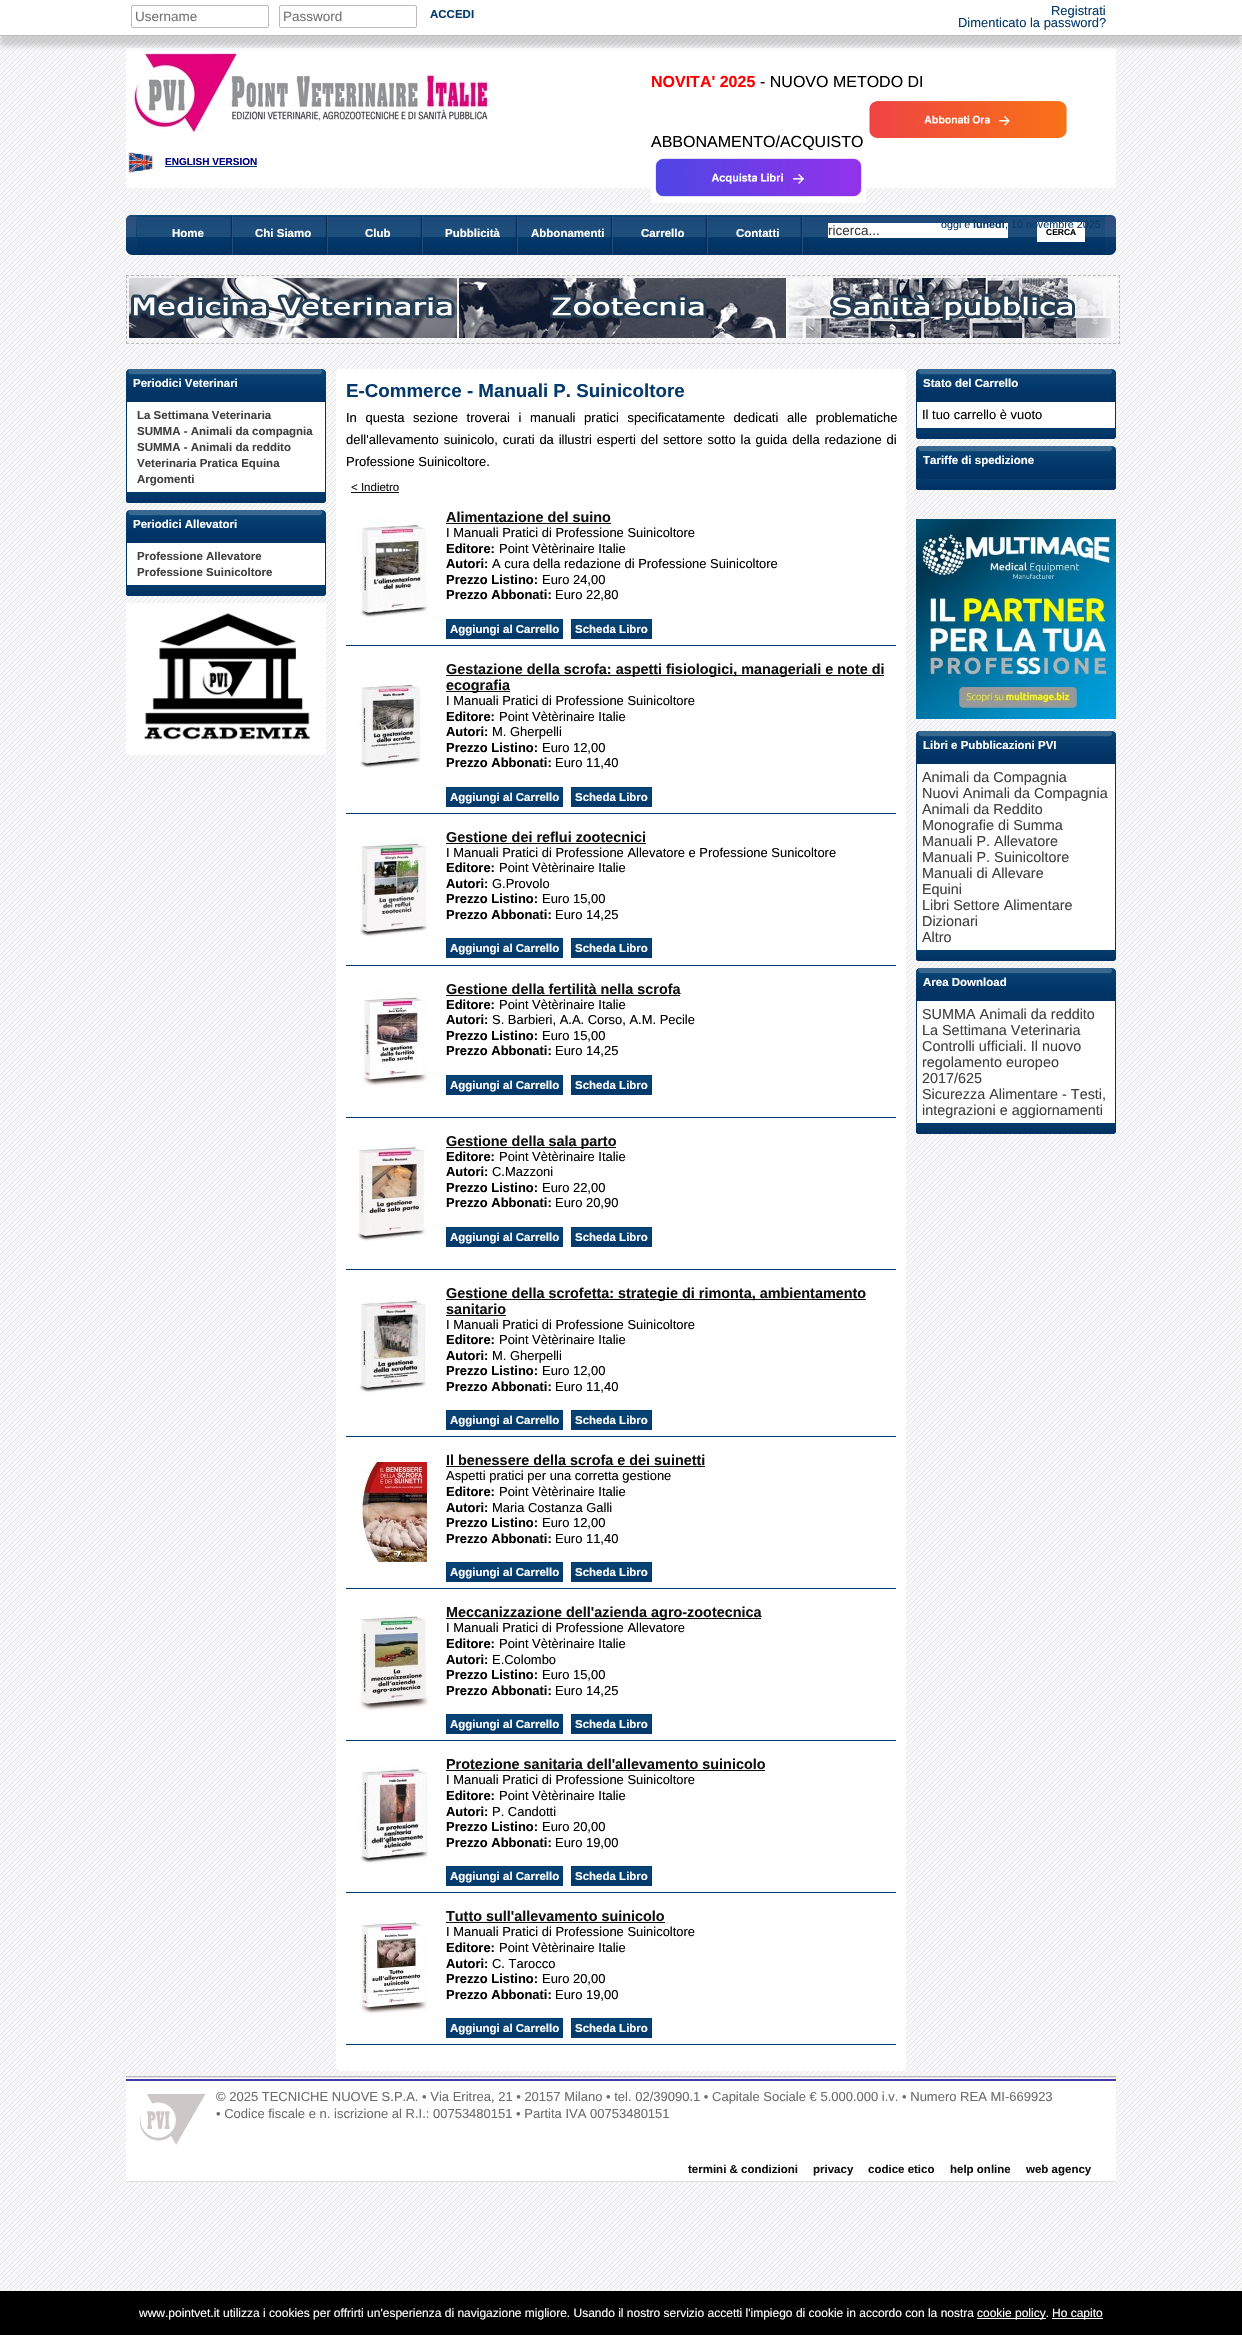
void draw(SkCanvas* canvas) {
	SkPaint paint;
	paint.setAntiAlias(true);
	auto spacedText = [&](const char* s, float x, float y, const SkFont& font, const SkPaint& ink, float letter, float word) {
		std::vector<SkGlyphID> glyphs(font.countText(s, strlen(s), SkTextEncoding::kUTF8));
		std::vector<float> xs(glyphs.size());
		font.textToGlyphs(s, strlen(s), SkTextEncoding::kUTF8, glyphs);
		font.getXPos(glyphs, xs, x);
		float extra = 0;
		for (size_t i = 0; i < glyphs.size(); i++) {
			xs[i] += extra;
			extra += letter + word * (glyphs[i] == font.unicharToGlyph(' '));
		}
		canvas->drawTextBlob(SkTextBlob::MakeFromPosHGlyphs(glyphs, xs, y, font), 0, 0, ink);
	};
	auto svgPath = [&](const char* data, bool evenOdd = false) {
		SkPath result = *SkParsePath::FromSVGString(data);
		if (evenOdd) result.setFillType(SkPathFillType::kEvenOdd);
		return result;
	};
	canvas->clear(0xffffffff);
	canvas->drawImageRect(SkImages::DeferredFromEncodedData(SkData::MakeFromFileName("img1.png")), SkRect::MakeXYWH(0, 36, 1242, 2255), SkSamplingOptions());
	paint.setColor(0xffffffff);
	canvas->drawRect(SkRect::MakeXYWH(126, 48, 990, 140), paint);
	canvas->drawImageRect(SkImages::DeferredFromEncodedData(SkData::MakeFromFileName("img4.png")), SkRect::MakeXYWH(126, 48, 368, 88), SkSamplingOptions());
	paint.setColor(0x33323232);
	paint.setMaskFilter(SkMaskFilter::MakeBlur(kNormal_SkBlurStyle, 2.5));
	canvas->drawRect(SkRect::MakeXYWH(0, 10, 1242, 36), paint);
	paint.setMaskFilter(nullptr);
	paint.setColor(0xffffffff);
	canvas->drawRect(SkRect::MakeXYWH(0, 6, 1242, 29), paint);
	paint.setColor(0xffbbbbbb);
	canvas->drawRect(SkRect::MakeXYWH(0, 35, 1242, 1), paint);
	paint.setStroke(true);
	paint.setStrokeWidth(1);
	canvas->drawRoundRect(SkRect::MakeXYWH(131.5, 5.5, 137, 22), 1.5, 1.5, paint);
	SkFont f1(fontMgr->matchFamilyStyle("Liberation Sans", SkFontStyle::Normal()), 13.5);
	f1.setSubpixel(true);
	paint.setStroke(false);
	paint.setColor(0xff757575);
	canvas->drawString("Username", 135, 21, f1, paint);
	paint.setStroke(true);
	paint.setColor(0xffbbbbbb);
	canvas->drawRoundRect(SkRect::MakeXYWH(279.5, 5.5, 137, 22), 1.5, 1.5, paint);
	paint.setStroke(false);
	paint.setColor(0xff757575);
	canvas->drawString("Password", 283, 21, f1, paint);
	SkFont f2(fontMgr->matchFamilyStyle("Liberation Sans", SkFontStyle::Bold()), 11.5);
	f2.setSubpixel(true);
	paint.setColor(0xff043a6b);
	canvas->drawString("ACCEDI", 430, 18, f2, paint);
	SkFont f3(fontMgr->matchFamilyStyle("Liberation Sans", SkFontStyle::Normal()), 12.95);
	f3.setSubpixel(true);
	canvas->drawString("Registrati", 1051, 15, f3, paint);
	canvas->drawString("Dimenticato la password?", 958, 27, f3, paint);
	SkFont f4(fontMgr->matchFamilyStyle("Liberation Sans", SkFontStyle::Bold()), 16);
	f4.setSubpixel(true);
	paint.setColor(0xffff0000);
	canvas->drawString("NOVITA' 2025", 651, 87, f4, paint);
	SkFont f5(fontMgr->matchFamilyStyle("Liberation Sans", SkFontStyle::Normal()), 16);
	f5.setSubpixel(true);
	paint.setColor(0xff000000);
	canvas->drawString("- NUOVO METODO DI", 760, 87, f5, paint);
	canvas->drawImageRect(SkImages::DeferredFromEncodedData(SkData::MakeFromFileName("img2.png")), SkRect::MakeXYWH(869, 101, 198, 37), SkSamplingOptions());
	canvas->drawString("ABBONAMENTO/ACQUISTO", 651, 147, f5, paint);
	canvas->drawImageRect(SkImages::DeferredFromEncodedData(SkData::MakeFromFileName("img3.png")), SkRect::MakeXYWH(651, 158, 215, 45), SkSamplingOptions());
	canvas->drawImageRect(SkImages::DeferredFromEncodedData(SkData::MakeFromFileName("img5.png")), SkRect::MakeXYWH(128, 152, 25, 21), SkSamplingOptions());
	SkFont f6(fontMgr->matchFamilyStyle("Liberation Sans", SkFontStyle::Bold()), 10);
	f6.setSubpixel(true);
	paint.setColor(0xff000080);
	canvas->drawString("ENGLISH VERSION", 165, 165, f6, paint);
	paint.setColor(0xff043a6b);
	canvas->drawRect(SkRect::MakeXYWH(165, 166, 92, 1), paint);
	canvas->drawImageRect(SkImages::DeferredFromEncodedData(SkData::MakeFromFileName("img6.png")), SkRect::MakeXYWH(137, 215, 968, 40), SkSamplingOptions());
	paint.setColor(0xffffffff);
	canvas->drawRect(SkRect::MakeXYWH(828, 223, 180, 15), paint);
	SkFont f7(fontMgr->matchFamilyStyle("Liberation Sans", SkFontStyle::Normal()), 10.75);
	f7.setSubpixel(true);
	paint.setColor(0xff043a6b);
	canvas->drawString("oggi è", 941, 228, f7, paint);
	SkFont f8(fontMgr->matchFamilyStyle("Liberation Sans", SkFontStyle::Bold()), 10.75);
	f8.setSubpixel(true);
	canvas->drawString("lunedì", 973, 228, f8, paint);
	paint.setColor(0xffffffff);
	canvas->drawRect(SkRect::MakeXYWH(1037, 222, 48, 20), paint);
	paint.setColor(0xff043a6b);
	canvas->drawString(", 10 novembre 2025", 1005, 228, f7, paint);
	canvas->drawImageRect(SkImages::DeferredFromEncodedData(SkData::MakeFromFileName("img7.png")), SkRect::MakeXYWH(126, 215, 11, 40), SkSamplingOptions());
	canvas->drawImageRect(SkImages::DeferredFromEncodedData(SkData::MakeFromFileName("img8.png")), SkRect::MakeXYWH(230, 215, 3, 40), SkSamplingOptions());
	paint.setColor(0xffffffff);
	canvas->drawString("Home", 172, 237, f2, paint);
	canvas->drawImageRect(SkImages::DeferredFromEncodedData(SkData::MakeFromFileName("img8.png")), SkRect::MakeXYWH(325, 215, 3, 40), SkSamplingOptions());
	canvas->drawString("Chi Siamo", 255, 237, f2, paint);
	canvas->drawImageRect(SkImages::DeferredFromEncodedData(SkData::MakeFromFileName("img8.png")), SkRect::MakeXYWH(420, 215, 3, 40), SkSamplingOptions());
	canvas->drawString("Club", 365, 237, f2, paint);
	canvas->drawImageRect(SkImages::DeferredFromEncodedData(SkData::MakeFromFileName("img8.png")), SkRect::MakeXYWH(515, 215, 3, 40), SkSamplingOptions());
	canvas->drawString("Pubblicità", 445, 237, f2, paint);
	canvas->drawImageRect(SkImages::DeferredFromEncodedData(SkData::MakeFromFileName("img8.png")), SkRect::MakeXYWH(610, 215, 3, 40), SkSamplingOptions());
	canvas->drawString("Abbonamenti", 531, 237, f2, paint);
	canvas->drawImageRect(SkImages::DeferredFromEncodedData(SkData::MakeFromFileName("img8.png")), SkRect::MakeXYWH(705, 215, 3, 40), SkSamplingOptions());
	canvas->drawString("Carrello", 641, 237, f2, paint);
	canvas->drawImageRect(SkImages::DeferredFromEncodedData(SkData::MakeFromFileName("img8.png")), SkRect::MakeXYWH(800, 215, 3, 40), SkSamplingOptions());
	canvas->drawString("Contatti", 736, 237, f2, paint);
	paint.setColor(0xff404040);
	canvas->drawString("ricerca...", 828, 235, f1, paint);
	SkFont f9(fontMgr->matchFamilyStyle("Liberation Sans", SkFontStyle::Bold()), 8.5);
	f9.setSubpixel(true);
	paint.setColor(0xff000000);
	canvas->drawString("CERCA", 1046, 235, f9, paint);
	canvas->drawImageRect(SkImages::DeferredFromEncodedData(SkData::MakeFromFileName("img9.png")), SkRect::MakeXYWH(1105, 215, 11, 40), SkSamplingOptions());
	paint.setStroke(true);
	paint.setColor(0xffbbbbbb);
	paint.setPathEffect(SkDashPathEffect::Make({{3, 2.01f}}, 0));
	canvas->drawPath(svgPath("M126 275.5H1120"), paint);
	paint.setPathEffect(nullptr);
	paint.setPathEffect(SkDashPathEffect::Make({{3, 2.08f}}, 0));
	canvas->drawPath(svgPath("M1119.5 275V344"), paint);
	paint.setPathEffect(nullptr);
	paint.setPathEffect(SkDashPathEffect::Make({{3, 2.01f}}, 0));
	canvas->drawPath(svgPath("M126 343.5H1120"), paint);
	paint.setPathEffect(nullptr);
	paint.setPathEffect(SkDashPathEffect::Make({{3, 2.08f}}, 0));
	canvas->drawPath(svgPath("M126.5 275V344"), paint);
	paint.setPathEffect(nullptr);
	canvas->drawImageRect(SkImages::DeferredFromEncodedData(SkData::MakeFromFileName("img10.png")), SkRect::MakeXYWH(129, 278, 328, 60), SkSamplingOptions());
	canvas->drawImageRect(SkImages::DeferredFromEncodedData(SkData::MakeFromFileName("img11.png")), SkRect::MakeXYWH(459, 278, 328, 60), SkSamplingOptions());
	canvas->drawImageRect(SkImages::DeferredFromEncodedData(SkData::MakeFromFileName("img12.png")), SkRect::MakeXYWH(789, 278, 328, 60), SkSamplingOptions());
	paint.setStroke(false);
	paint.setColor(0xff013365);
	canvas->drawRect(SkRect::MakeXYWH(126, 396, 200, 6), paint);
	canvas->drawImageRect(SkImages::DeferredFromEncodedData(SkData::MakeFromFileName("img13.png")), SkRect::MakeXYWH(126, 369, 200, 27), SkSamplingOptions());
	paint.setColor(0xffffffff);
	canvas->drawString("Periodici Veterinari", 133, 387, f2, paint);
	canvas->drawRect(SkRect::MakeXYWH(127, 402, 198, 90), paint);
	paint.setColor(0xff013365);
	canvas->drawRect(SkRect::MakeXYWH(325, 402, 1, 90), paint);
	canvas->drawRect(SkRect::MakeXYWH(126, 402, 1, 90), paint);
	paint.setColor(0xff404040);
	canvas->drawString("La Settimana Veterinaria", 137, 419, f2, paint);
	canvas->drawString("SUMMA - Animali da compagnia", 137, 435, f2, paint);
	canvas->drawString("SUMMA - Animali da reddito", 137, 451, f2, paint);
	canvas->drawString("Veterinaria Pratica Equina", 137, 467, f2, paint);
	canvas->drawString("Argomenti", 137, 483, f2, paint);
	canvas->drawImageRect(SkImages::DeferredFromEncodedData(SkData::MakeFromFileName("img14.png")), SkRect::MakeXYWH(126, 492, 200, 11), SkSamplingOptions());
	paint.setColor(0xff013365);
	canvas->drawRect(SkRect::MakeXYWH(126, 537, 200, 6), paint);
	canvas->drawImageRect(SkImages::DeferredFromEncodedData(SkData::MakeFromFileName("img13.png")), SkRect::MakeXYWH(126, 510, 200, 27), SkSamplingOptions());
	paint.setColor(0xffffffff);
	canvas->drawString("Periodici Allevatori", 133, 528, f2, paint);
	canvas->drawRect(SkRect::MakeXYWH(127, 543, 198, 42), paint);
	paint.setColor(0xff013365);
	canvas->drawRect(SkRect::MakeXYWH(325, 543, 1, 42), paint);
	canvas->drawRect(SkRect::MakeXYWH(126, 543, 1, 42), paint);
	paint.setColor(0xff404040);
	canvas->drawString("Professione Allevatore", 137, 560, f2, paint);
	canvas->drawString("Professione Suinicoltore", 137, 576, f2, paint);
	canvas->drawImageRect(SkImages::DeferredFromEncodedData(SkData::MakeFromFileName("img14.png")), SkRect::MakeXYWH(126, 585, 200, 11), SkSamplingOptions());
	canvas->drawImageRect(SkImages::DeferredFromEncodedData(SkData::MakeFromFileName("img15.png")), SkRect::MakeXYWH(126, 603, 200, 152), SkSamplingOptions());
	paint.setColor(0xffffffff);
	canvas->drawRect(SkRect::MakeXYWH(336, 372, 570, 1696), paint);
	canvas->drawImageRect(SkImages::DeferredFromEncodedData(SkData::MakeFromFileName("img16.png")), SkRect::MakeXYWH(336, 369, 570, 3), SkSamplingOptions());
	SkFont f10(fontMgr->matchFamilyStyle("Liberation Sans", SkFontStyle::Bold()), 18.75);
	f10.setSubpixel(true);
	paint.setColor(0xff043a6b);
	canvas->drawString("E-Commerce - Manuali P. Suinicoltore", 346, 397, f10, paint);
	SkFont f11(fontMgr->matchFamilyStyle("Liberation Sans", SkFontStyle::Normal()), 13);
	f11.setSubpixel(true);
	paint.setColor(0xff000000);
	spacedText("In questa sezione troverai i manuali pratici specificatamente dedicati alle problematiche", 346, 422, f11, paint, 0, 5);
	spacedText("dell'allevamento suinicolo, curati da illustri esperti del settore sotto la guida della redazione di", 346, 444, f11, paint, 0, 1.25);
	canvas->drawString("Professione Suinicoltore.", 346, 466, f11, paint);
	SkFont f12(fontMgr->matchFamilyStyle("Liberation Sans", SkFontStyle::Normal()), 11.5);
	f12.setSubpixel(true);
	paint.setColor(0xff111111);
	canvas->drawString("< Indietro", 351, 491, f12, paint);
	paint.setColor(0xff101010);
	canvas->drawRect(SkRect::MakeXYWH(351, 492, 48, 1), paint);
	paint.setColor(0xff043a6b);
	canvas->drawRect(SkRect::MakeXYWH(346, 645, 550, 1), paint);
	SkFont f13(fontMgr->matchFamilyStyle("Liberation Sans", SkFontStyle::Bold()), 14.4);
	f13.setSubpixel(true);
	paint.setColor(0xff111111);
	canvas->drawString("Alimentazione del suino", 446, 522, f13, paint);
	paint.setColor(0xff101010);
	canvas->drawRect(SkRect::MakeXYWH(446, 523, 165, 1), paint);
	canvas->drawImageRect(SkImages::DeferredFromEncodedData(SkData::MakeFromFileName("img17.png")), SkRect::MakeXYWH(359, 519, 69, 98), SkSamplingOptions());
	paint.setColor(0xff000000);
	canvas->drawString("I Manuali Pratici di Professione Suinicoltore", 446, 537, f3, paint);
	SkFont f14(fontMgr->matchFamilyStyle("Liberation Sans", SkFontStyle::Bold()), 12.95);
	f14.setSubpixel(true);
	canvas->drawString("Editore:", 446, 553, f14, paint);
	canvas->drawString("Point Vètèrinaire Italie", 499, 553, f3, paint);
	canvas->drawString("Autori:", 446, 568, f14, paint);
	canvas->drawString("A cura della redazione di Professione Suinicoltore", 492, 568, f3, paint);
	canvas->drawString("Prezzo Listino:", 446, 584, f14, paint);
	canvas->drawString("Euro 24,00", 542, 584, f3, paint);
	canvas->drawString("Prezzo Abbonati:", 446, 599, f14, paint);
	canvas->drawString("Euro 22,80", 555, 599, f3, paint);
	paint.setColor(0xff043a6b);
	canvas->drawRect(SkRect::MakeXYWH(447, 632, 115, 6), paint);
	canvas->drawImageRect(SkImages::DeferredFromEncodedData(SkData::MakeFromFileName("img18.png")), SkRect::MakeXYWH(447, 620, 115, 12), SkSamplingOptions());
	paint.setStroke(true);
	canvas->drawRect(SkRect::MakeXYWH(446.5, 619.5, 116, 19), paint);
	paint.setStroke(false);
	paint.setColor(0xffffffff);
	canvas->drawString("Aggiungi al Carrello", 450, 633, f2, paint);
	paint.setColor(0xff043a6b);
	canvas->drawRect(SkRect::MakeXYWH(572, 632, 79, 6), paint);
	canvas->drawImageRect(SkImages::DeferredFromEncodedData(SkData::MakeFromFileName("img19.png")), SkRect::MakeXYWH(572, 620, 79, 12), SkSamplingOptions());
	paint.setStroke(true);
	canvas->drawRect(SkRect::MakeXYWH(571.5, 619.5, 80, 19), paint);
	paint.setStroke(false);
	paint.setColor(0xffffffff);
	canvas->drawString("Scheda Libro", 575, 633, f2, paint);
	paint.setColor(0xff043a6b);
	canvas->drawRect(SkRect::MakeXYWH(346, 813, 550, 1), paint);
	paint.setColor(0xff101010);
	canvas->drawRect(SkRect::MakeXYWH(446, 675, 438, 1), paint);
	paint.setColor(0xff111111);
	canvas->drawString("Gestazione della scrofa: aspetti fisiologici, manageriali e note di", 446, 674, f13, paint);
	canvas->drawImageRect(SkImages::DeferredFromEncodedData(SkData::MakeFromFileName("img20.png")), SkRect::MakeXYWH(356, 684, 65, 84), SkSamplingOptions());
	paint.setColor(0xff101010);
	canvas->drawRect(SkRect::MakeXYWH(446, 691, 64, 1), paint);
	paint.setColor(0xff111111);
	canvas->drawString("ecografia", 446, 690, f13, paint);
	paint.setColor(0xff000000);
	canvas->drawString("I Manuali Pratici di Professione Suinicoltore", 446, 705, f3, paint);
	canvas->drawString("Editore:", 446, 721, f14, paint);
	canvas->drawString("Point Vètèrinaire Italie", 499, 721, f3, paint);
	canvas->drawString("Autori:", 446, 736, f14, paint);
	canvas->drawString("M. Gherpelli", 492, 736, f3, paint);
	canvas->drawString("Prezzo Listino:", 446, 752, f14, paint);
	canvas->drawString("Euro 12,00", 542, 752, f3, paint);
	canvas->drawString("Prezzo Abbonati:", 446, 767, f14, paint);
	canvas->drawString("Euro 11,40", 555, 767, f3, paint);
	paint.setColor(0xff043a6b);
	canvas->drawRect(SkRect::MakeXYWH(447, 800, 115, 6), paint);
	canvas->drawImageRect(SkImages::DeferredFromEncodedData(SkData::MakeFromFileName("img18.png")), SkRect::MakeXYWH(447, 788, 115, 12), SkSamplingOptions());
	paint.setStroke(true);
	canvas->drawRect(SkRect::MakeXYWH(446.5, 787.5, 116, 19), paint);
	paint.setStroke(false);
	paint.setColor(0xffffffff);
	canvas->drawString("Aggiungi al Carrello", 450, 801, f2, paint);
	paint.setColor(0xff043a6b);
	canvas->drawRect(SkRect::MakeXYWH(572, 800, 79, 6), paint);
	canvas->drawImageRect(SkImages::DeferredFromEncodedData(SkData::MakeFromFileName("img19.png")), SkRect::MakeXYWH(572, 788, 79, 12), SkSamplingOptions());
	paint.setStroke(true);
	canvas->drawRect(SkRect::MakeXYWH(571.5, 787.5, 80, 19), paint);
	paint.setStroke(false);
	paint.setColor(0xffffffff);
	canvas->drawString("Scheda Libro", 575, 801, f2, paint);
	paint.setColor(0xff043a6b);
	canvas->drawRect(SkRect::MakeXYWH(346, 965, 550, 1), paint);
	paint.setColor(0xff111111);
	canvas->drawString("Gestione dei reflui zootecnici", 446, 842, f13, paint);
	paint.setColor(0xff101010);
	canvas->drawRect(SkRect::MakeXYWH(446, 843, 200, 1), paint);
	canvas->drawImageRect(SkImages::DeferredFromEncodedData(SkData::MakeFromFileName("img21.png")), SkRect::MakeXYWH(356, 839, 72, 98), SkSamplingOptions());
	paint.setColor(0xff000000);
	canvas->drawString("I Manuali Pratici di Professione Allevatore e Professione Sunicoltore", 446, 857, f3, paint);
	canvas->drawString("Editore:", 446, 872, f14, paint);
	canvas->drawString("Point Vètèrinaire Italie", 499, 872, f3, paint);
	canvas->drawString("Autori:", 446, 888, f14, paint);
	canvas->drawString("G.Provolo", 492, 888, f3, paint);
	canvas->drawString("Prezzo Listino:", 446, 903, f14, paint);
	canvas->drawString("Euro 15,00", 542, 903, f3, paint);
	canvas->drawString("Prezzo Abbonati:", 446, 919, f14, paint);
	canvas->drawString("Euro 14,25", 555, 919, f3, paint);
	paint.setColor(0xff043a6b);
	canvas->drawRect(SkRect::MakeXYWH(447, 951, 115, 6), paint);
	canvas->drawImageRect(SkImages::DeferredFromEncodedData(SkData::MakeFromFileName("img18.png")), SkRect::MakeXYWH(447, 939, 115, 12), SkSamplingOptions());
	paint.setStroke(true);
	canvas->drawRect(SkRect::MakeXYWH(446.5, 938.5, 116, 19), paint);
	paint.setStroke(false);
	paint.setColor(0xffffffff);
	canvas->drawString("Aggiungi al Carrello", 450, 952, f2, paint);
	paint.setColor(0xff043a6b);
	canvas->drawRect(SkRect::MakeXYWH(572, 951, 79, 6), paint);
	canvas->drawImageRect(SkImages::DeferredFromEncodedData(SkData::MakeFromFileName("img19.png")), SkRect::MakeXYWH(572, 939, 79, 12), SkSamplingOptions());
	paint.setStroke(true);
	canvas->drawRect(SkRect::MakeXYWH(571.5, 938.5, 80, 19), paint);
	paint.setStroke(false);
	paint.setColor(0xffffffff);
	canvas->drawString("Scheda Libro", 575, 952, f2, paint);
	paint.setColor(0xff043a6b);
	canvas->drawRect(SkRect::MakeXYWH(346, 1117, 550, 1), paint);
	paint.setColor(0xff111111);
	canvas->drawString("Gestione della fertilità nella scrofa", 446, 994, f13, paint);
	paint.setColor(0xff101010);
	canvas->drawRect(SkRect::MakeXYWH(446, 995, 234, 1), paint);
	canvas->drawImageRect(SkImages::DeferredFromEncodedData(SkData::MakeFromFileName("img22.png")), SkRect::MakeXYWH(360, 991, 68, 96), SkSamplingOptions());
	paint.setColor(0xff000000);
	canvas->drawString("Editore:", 446, 1009, f14, paint);
	canvas->drawString("Point Vètèrinaire Italie", 499, 1009, f3, paint);
	canvas->drawString("Autori:", 446, 1024, f14, paint);
	canvas->drawString("S. Barbieri, A.A. Corso, A.M. Pecile", 492, 1024, f3, paint);
	canvas->drawString("Prezzo Listino:", 446, 1040, f14, paint);
	canvas->drawString("Euro 15,00", 542, 1040, f3, paint);
	canvas->drawString("Prezzo Abbonati:", 446, 1055, f14, paint);
	canvas->drawString("Euro 14,25", 555, 1055, f3, paint);
	paint.setColor(0xff043a6b);
	canvas->drawRect(SkRect::MakeXYWH(447, 1088, 115, 6), paint);
	canvas->drawImageRect(SkImages::DeferredFromEncodedData(SkData::MakeFromFileName("img18.png")), SkRect::MakeXYWH(447, 1076, 115, 12), SkSamplingOptions());
	paint.setStroke(true);
	canvas->drawRect(SkRect::MakeXYWH(446.5, 1075.5, 116, 19), paint);
	paint.setStroke(false);
	paint.setColor(0xffffffff);
	canvas->drawString("Aggiungi al Carrello", 450, 1089, f2, paint);
	paint.setColor(0xff043a6b);
	canvas->drawRect(SkRect::MakeXYWH(572, 1088, 79, 6), paint);
	canvas->drawImageRect(SkImages::DeferredFromEncodedData(SkData::MakeFromFileName("img19.png")), SkRect::MakeXYWH(572, 1076, 79, 12), SkSamplingOptions());
	paint.setStroke(true);
	canvas->drawRect(SkRect::MakeXYWH(571.5, 1075.5, 80, 19), paint);
	paint.setStroke(false);
	paint.setColor(0xffffffff);
	canvas->drawString("Scheda Libro", 575, 1089, f2, paint);
	paint.setColor(0xff043a6b);
	canvas->drawRect(SkRect::MakeXYWH(346, 1269, 550, 1), paint);
	canvas->drawImageRect(SkImages::DeferredFromEncodedData(SkData::MakeFromFileName("img23.png")), SkRect::MakeXYWH(356, 1143, 70, 98), SkSamplingOptions());
	paint.setColor(0xff101010);
	canvas->drawRect(SkRect::MakeXYWH(446, 1147, 170, 1), paint);
	paint.setColor(0xff111111);
	canvas->drawString("Gestione della sala parto", 446, 1146, f13, paint);
	paint.setColor(0xff000000);
	canvas->drawString("Editore:", 446, 1161, f14, paint);
	canvas->drawString("Point Vètèrinaire Italie", 499, 1161, f3, paint);
	canvas->drawString("Autori:", 446, 1176, f14, paint);
	canvas->drawString("C.Mazzoni", 492, 1176, f3, paint);
	canvas->drawString("Prezzo Listino:", 446, 1192, f14, paint);
	canvas->drawString("Euro 22,00", 542, 1192, f3, paint);
	canvas->drawString("Prezzo Abbonati:", 446, 1207, f14, paint);
	canvas->drawString("Euro 20,90", 555, 1207, f3, paint);
	paint.setColor(0xff043a6b);
	canvas->drawRect(SkRect::MakeXYWH(447, 1240, 115, 6), paint);
	canvas->drawImageRect(SkImages::DeferredFromEncodedData(SkData::MakeFromFileName("img18.png")), SkRect::MakeXYWH(447, 1228, 115, 12), SkSamplingOptions());
	paint.setStroke(true);
	canvas->drawRect(SkRect::MakeXYWH(446.5, 1227.5, 116, 19), paint);
	paint.setStroke(false);
	paint.setColor(0xffffffff);
	canvas->drawString("Aggiungi al Carrello", 450, 1241, f2, paint);
	paint.setColor(0xff043a6b);
	canvas->drawRect(SkRect::MakeXYWH(572, 1240, 79, 6), paint);
	canvas->drawImageRect(SkImages::DeferredFromEncodedData(SkData::MakeFromFileName("img19.png")), SkRect::MakeXYWH(572, 1228, 79, 12), SkSamplingOptions());
	paint.setStroke(true);
	canvas->drawRect(SkRect::MakeXYWH(571.5, 1227.5, 80, 19), paint);
	paint.setStroke(false);
	paint.setColor(0xffffffff);
	canvas->drawString("Scheda Libro", 575, 1241, f2, paint);
	paint.setColor(0xff043a6b);
	canvas->drawRect(SkRect::MakeXYWH(346, 1436, 550, 1), paint);
	canvas->drawImageRect(SkImages::DeferredFromEncodedData(SkData::MakeFromFileName("img24.png")), SkRect::MakeXYWH(357, 1295, 69, 98), SkSamplingOptions());
	paint.setColor(0xff101010);
	canvas->drawRect(SkRect::MakeXYWH(446, 1299, 420, 1), paint);
	paint.setColor(0xff111111);
	canvas->drawString("Gestione della scrofetta: strategie di rimonta, ambientamento", 446, 1298, f13, paint);
	canvas->drawString("sanitario", 446, 1314, f13, paint);
	paint.setColor(0xff101010);
	canvas->drawRect(SkRect::MakeXYWH(446, 1315, 60, 1), paint);
	paint.setColor(0xff000000);
	canvas->drawString("I Manuali Pratici di Professione Suinicoltore", 446, 1329, f3, paint);
	canvas->drawString("Editore:", 446, 1344, f14, paint);
	canvas->drawString("Point Vètèrinaire Italie", 499, 1344, f3, paint);
	canvas->drawString("Autori:", 446, 1360, f14, paint);
	canvas->drawString("M. Gherpelli", 492, 1360, f3, paint);
	canvas->drawString("Prezzo Listino:", 446, 1375, f14, paint);
	canvas->drawString("Euro 12,00", 542, 1375, f3, paint);
	canvas->drawString("Prezzo Abbonati:", 446, 1391, f14, paint);
	canvas->drawString("Euro 11,40", 555, 1391, f3, paint);
	paint.setColor(0xff043a6b);
	canvas->drawRect(SkRect::MakeXYWH(447, 1423, 115, 6), paint);
	canvas->drawImageRect(SkImages::DeferredFromEncodedData(SkData::MakeFromFileName("img18.png")), SkRect::MakeXYWH(447, 1411, 115, 12), SkSamplingOptions());
	paint.setStroke(true);
	canvas->drawRect(SkRect::MakeXYWH(446.5, 1410.5, 116, 19), paint);
	paint.setStroke(false);
	paint.setColor(0xffffffff);
	canvas->drawString("Aggiungi al Carrello", 450, 1424, f2, paint);
	paint.setColor(0xff043a6b);
	canvas->drawRect(SkRect::MakeXYWH(572, 1423, 79, 6), paint);
	canvas->drawImageRect(SkImages::DeferredFromEncodedData(SkData::MakeFromFileName("img19.png")), SkRect::MakeXYWH(572, 1411, 79, 12), SkSamplingOptions());
	paint.setStroke(true);
	canvas->drawRect(SkRect::MakeXYWH(571.5, 1410.5, 80, 19), paint);
	paint.setStroke(false);
	paint.setColor(0xffffffff);
	canvas->drawString("Scheda Libro", 575, 1424, f2, paint);
	paint.setColor(0xff043a6b);
	canvas->drawRect(SkRect::MakeXYWH(346, 1588, 550, 1), paint);
	paint.setColor(0xff111111);
	canvas->drawString("Il benessere della scrofa e dei suinetti", 446, 1465, f13, paint);
	paint.setColor(0xff101010);
	canvas->drawRect(SkRect::MakeXYWH(446, 1466, 259, 1), paint);
	canvas->drawImageRect(SkImages::DeferredFromEncodedData(SkData::MakeFromFileName("img25.png")), SkRect::MakeXYWH(356, 1462, 71, 100), SkSamplingOptions());
	paint.setColor(0xff000000);
	canvas->drawString("Aspetti pratici per una corretta gestione", 446, 1480, f3, paint);
	canvas->drawString("Editore:", 446, 1496, f14, paint);
	canvas->drawString("Point Vètèrinaire Italie", 499, 1496, f3, paint);
	canvas->drawString("Autori:", 446, 1512, f14, paint);
	canvas->drawString("Maria Costanza Galli", 492, 1512, f3, paint);
	canvas->drawString("Prezzo Listino:", 446, 1527, f14, paint);
	canvas->drawString("Euro 12,00", 542, 1527, f3, paint);
	canvas->drawString("Prezzo Abbonati:", 446, 1543, f14, paint);
	canvas->drawString("Euro 11,40", 555, 1543, f3, paint);
	paint.setColor(0xff043a6b);
	canvas->drawRect(SkRect::MakeXYWH(447, 1575, 115, 6), paint);
	canvas->drawImageRect(SkImages::DeferredFromEncodedData(SkData::MakeFromFileName("img18.png")), SkRect::MakeXYWH(447, 1563, 115, 12), SkSamplingOptions());
	paint.setStroke(true);
	canvas->drawRect(SkRect::MakeXYWH(446.5, 1562.5, 116, 19), paint);
	paint.setStroke(false);
	paint.setColor(0xffffffff);
	canvas->drawString("Aggiungi al Carrello", 450, 1576, f2, paint);
	paint.setColor(0xff043a6b);
	canvas->drawRect(SkRect::MakeXYWH(572, 1575, 79, 6), paint);
	canvas->drawImageRect(SkImages::DeferredFromEncodedData(SkData::MakeFromFileName("img19.png")), SkRect::MakeXYWH(572, 1563, 79, 12), SkSamplingOptions());
	paint.setStroke(true);
	canvas->drawRect(SkRect::MakeXYWH(571.5, 1562.5, 80, 19), paint);
	paint.setStroke(false);
	paint.setColor(0xffffffff);
	canvas->drawString("Scheda Libro", 575, 1576, f2, paint);
	paint.setColor(0xff043a6b);
	canvas->drawRect(SkRect::MakeXYWH(346, 1740, 550, 1), paint);
	canvas->drawImageRect(SkImages::DeferredFromEncodedData(SkData::MakeFromFileName("img26.png")), SkRect::MakeXYWH(356, 1614, 74, 97), SkSamplingOptions());
	paint.setColor(0xff101010);
	canvas->drawRect(SkRect::MakeXYWH(446, 1618, 315, 1), paint);
	paint.setColor(0xff111111);
	canvas->drawString("Meccanizzazione dell'azienda agro-zootecnica", 446, 1617, f13, paint);
	paint.setColor(0xff000000);
	canvas->drawString("I Manuali Pratici di Professione Allevatore", 446, 1632, f3, paint);
	canvas->drawString("Editore:", 446, 1648, f14, paint);
	canvas->drawString("Point Vètèrinaire Italie", 499, 1648, f3, paint);
	canvas->drawString("Autori:", 446, 1664, f14, paint);
	canvas->drawString("E.Colombo", 492, 1664, f3, paint);
	canvas->drawString("Prezzo Listino:", 446, 1679, f14, paint);
	canvas->drawString("Euro 15,00", 542, 1679, f3, paint);
	canvas->drawString("Prezzo Abbonati:", 446, 1695, f14, paint);
	canvas->drawString("Euro 14,25", 555, 1695, f3, paint);
	paint.setColor(0xff043a6b);
	canvas->drawRect(SkRect::MakeXYWH(447, 1727, 115, 6), paint);
	canvas->drawImageRect(SkImages::DeferredFromEncodedData(SkData::MakeFromFileName("img18.png")), SkRect::MakeXYWH(447, 1715, 115, 12), SkSamplingOptions());
	paint.setStroke(true);
	canvas->drawRect(SkRect::MakeXYWH(446.5, 1714.5, 116, 19), paint);
	paint.setStroke(false);
	paint.setColor(0xffffffff);
	canvas->drawString("Aggiungi al Carrello", 450, 1728, f2, paint);
	paint.setColor(0xff043a6b);
	canvas->drawRect(SkRect::MakeXYWH(572, 1727, 79, 6), paint);
	canvas->drawImageRect(SkImages::DeferredFromEncodedData(SkData::MakeFromFileName("img19.png")), SkRect::MakeXYWH(572, 1715, 79, 12), SkSamplingOptions());
	paint.setStroke(true);
	canvas->drawRect(SkRect::MakeXYWH(571.5, 1714.5, 80, 19), paint);
	paint.setStroke(false);
	paint.setColor(0xffffffff);
	canvas->drawString("Scheda Libro", 575, 1728, f2, paint);
	paint.setColor(0xff043a6b);
	canvas->drawRect(SkRect::MakeXYWH(346, 1892, 550, 1), paint);
	paint.setColor(0xff111111);
	canvas->drawString("Protezione sanitaria dell'allevamento suinicolo", 446, 1769, f13, paint);
	paint.setColor(0xff101010);
	canvas->drawRect(SkRect::MakeXYWH(446, 1770, 319, 1), paint);
	canvas->drawImageRect(SkImages::DeferredFromEncodedData(SkData::MakeFromFileName("img27.png")), SkRect::MakeXYWH(356, 1766, 72, 97), SkSamplingOptions());
	paint.setColor(0xff000000);
	canvas->drawString("I Manuali Pratici di Professione Suinicoltore", 446, 1784, f3, paint);
	canvas->drawString("Editore:", 446, 1800, f14, paint);
	canvas->drawString("Point Vètèrinaire Italie", 499, 1800, f3, paint);
	canvas->drawString("Autori:", 446, 1816, f14, paint);
	canvas->drawString("P. Candotti", 492, 1816, f3, paint);
	canvas->drawString("Prezzo Listino:", 446, 1831, f14, paint);
	canvas->drawString("Euro 20,00", 542, 1831, f3, paint);
	canvas->drawString("Prezzo Abbonati:", 446, 1847, f14, paint);
	canvas->drawString("Euro 19,00", 555, 1847, f3, paint);
	paint.setColor(0xff043a6b);
	canvas->drawRect(SkRect::MakeXYWH(447, 1879, 115, 6), paint);
	canvas->drawImageRect(SkImages::DeferredFromEncodedData(SkData::MakeFromFileName("img18.png")), SkRect::MakeXYWH(447, 1867, 115, 12), SkSamplingOptions());
	paint.setStroke(true);
	canvas->drawRect(SkRect::MakeXYWH(446.5, 1866.5, 116, 19), paint);
	paint.setStroke(false);
	paint.setColor(0xffffffff);
	canvas->drawString("Aggiungi al Carrello", 450, 1880, f2, paint);
	paint.setColor(0xff043a6b);
	canvas->drawRect(SkRect::MakeXYWH(572, 1879, 79, 6), paint);
	canvas->drawImageRect(SkImages::DeferredFromEncodedData(SkData::MakeFromFileName("img19.png")), SkRect::MakeXYWH(572, 1867, 79, 12), SkSamplingOptions());
	paint.setStroke(true);
	canvas->drawRect(SkRect::MakeXYWH(571.5, 1866.5, 80, 19), paint);
	paint.setStroke(false);
	paint.setColor(0xffffffff);
	canvas->drawString("Scheda Libro", 575, 1880, f2, paint);
	paint.setColor(0xff043a6b);
	canvas->drawRect(SkRect::MakeXYWH(346, 2044, 550, 1), paint);
	paint.setColor(0xff111111);
	canvas->drawString("Tutto sull'allevamento suinicolo", 446, 1921, f13, paint);
	paint.setColor(0xff101010);
	canvas->drawRect(SkRect::MakeXYWH(446, 1922, 219, 1), paint);
	canvas->drawImageRect(SkImages::DeferredFromEncodedData(SkData::MakeFromFileName("img28.png")), SkRect::MakeXYWH(356, 1918, 72, 96), SkSamplingOptions());
	paint.setColor(0xff000000);
	canvas->drawString("I Manuali Pratici di Professione Suinicoltore", 446, 1936, f3, paint);
	canvas->drawString("Editore:", 446, 1952, f14, paint);
	canvas->drawString("Point Vètèrinaire Italie", 499, 1952, f3, paint);
	canvas->drawString("Autori:", 446, 1968, f14, paint);
	canvas->drawString("C. Tarocco", 492, 1968, f3, paint);
	canvas->drawString("Prezzo Listino:", 446, 1983, f14, paint);
	canvas->drawString("Euro 20,00", 542, 1983, f3, paint);
	canvas->drawString("Prezzo Abbonati:", 446, 1999, f14, paint);
	canvas->drawString("Euro 19,00", 555, 1999, f3, paint);
	paint.setColor(0xff043a6b);
	canvas->drawRect(SkRect::MakeXYWH(447, 2031, 115, 6), paint);
	canvas->drawImageRect(SkImages::DeferredFromEncodedData(SkData::MakeFromFileName("img18.png")), SkRect::MakeXYWH(447, 2019, 115, 12), SkSamplingOptions());
	paint.setStroke(true);
	canvas->drawRect(SkRect::MakeXYWH(446.5, 2018.5, 116, 19), paint);
	paint.setStroke(false);
	paint.setColor(0xffffffff);
	canvas->drawString("Aggiungi al Carrello", 450, 2032, f2, paint);
	paint.setColor(0xff043a6b);
	canvas->drawRect(SkRect::MakeXYWH(572, 2031, 79, 6), paint);
	canvas->drawImageRect(SkImages::DeferredFromEncodedData(SkData::MakeFromFileName("img19.png")), SkRect::MakeXYWH(572, 2019, 79, 12), SkSamplingOptions());
	paint.setStroke(true);
	canvas->drawRect(SkRect::MakeXYWH(571.5, 2018.5, 80, 19), paint);
	paint.setStroke(false);
	paint.setColor(0xffffffff);
	canvas->drawString("Scheda Libro", 575, 2032, f2, paint);
	canvas->drawImageRect(SkImages::DeferredFromEncodedData(SkData::MakeFromFileName("img29.png")), SkRect::MakeXYWH(336, 2068, 570, 3), SkSamplingOptions());
	paint.setColor(0xff013365);
	canvas->drawRect(SkRect::MakeXYWH(916, 396, 200, 6), paint);
	canvas->drawImageRect(SkImages::DeferredFromEncodedData(SkData::MakeFromFileName("img13.png")), SkRect::MakeXYWH(916, 369, 200, 27), SkSamplingOptions());
	paint.setColor(0xffffffff);
	canvas->drawString("Stato del Carrello", 923, 387, f2, paint);
	canvas->drawRect(SkRect::MakeXYWH(917, 402, 198, 26), paint);
	paint.setColor(0xff013365);
	canvas->drawRect(SkRect::MakeXYWH(1115, 402, 1, 26), paint);
	canvas->drawRect(SkRect::MakeXYWH(916, 402, 1, 26), paint);
	paint.setColor(0xff000000);
	canvas->drawString("Il tuo carrello è vuoto", 922, 419, f3, paint);
	canvas->drawImageRect(SkImages::DeferredFromEncodedData(SkData::MakeFromFileName("img14.png")), SkRect::MakeXYWH(916, 428, 200, 11), SkSamplingOptions());
	paint.setColor(0xff013365);
	canvas->drawRect(SkRect::MakeXYWH(916, 473, 200, 6), paint);
	canvas->drawImageRect(SkImages::DeferredFromEncodedData(SkData::MakeFromFileName("img13.png")), SkRect::MakeXYWH(916, 446, 200, 27), SkSamplingOptions());
	paint.setColor(0xffffffff);
	canvas->drawString("Tariffe di spedizione", 923, 464, f2, paint);
	canvas->drawImageRect(SkImages::DeferredFromEncodedData(SkData::MakeFromFileName("img14.png")), SkRect::MakeXYWH(916, 479, 200, 11), SkSamplingOptions());
	canvas->drawImageRect(SkImages::DeferredFromEncodedData(SkData::MakeFromFileName("img30.png")), SkRect::MakeXYWH(916, 519, 200, 200), SkSamplingOptions());
	paint.setColor(0xff013365);
	canvas->drawRect(SkRect::MakeXYWH(916, 758, 200, 6), paint);
	canvas->drawImageRect(SkImages::DeferredFromEncodedData(SkData::MakeFromFileName("img13.png")), SkRect::MakeXYWH(916, 731, 200, 27), SkSamplingOptions());
	paint.setColor(0xffffffff);
	canvas->drawString("Libri e Pubblicazioni PVI", 923, 749, f2, paint);
	canvas->drawRect(SkRect::MakeXYWH(917, 764, 198, 186), paint);
	paint.setColor(0xff013365);
	canvas->drawRect(SkRect::MakeXYWH(1115, 764, 1, 186), paint);
	canvas->drawRect(SkRect::MakeXYWH(916, 764, 1, 186), paint);
	SkFont f15(fontMgr->matchFamilyStyle("Liberation Sans", SkFontStyle::Normal()), 14.4);
	f15.setSubpixel(true);
	paint.setColor(0xff404040);
	canvas->drawString("Animali da Compagnia", 922, 782, f15, paint);
	canvas->drawString("Nuovi Animali da Compagnia", 922, 798, f15, paint);
	canvas->drawString("Animali da Reddito", 922, 814, f15, paint);
	canvas->drawString("Monografie di Summa", 922, 830, f15, paint);
	canvas->drawString("Manuali P. Allevatore", 922, 846, f15, paint);
	canvas->drawString("Manuali P. Suinicoltore", 922, 862, f15, paint);
	canvas->drawString("Manuali di Allevare", 922, 878, f15, paint);
	canvas->drawString("Equini", 922, 894, f15, paint);
	canvas->drawString("Libri Settore Alimentare", 922, 910, f15, paint);
	canvas->drawString("Dizionari", 922, 926, f15, paint);
	canvas->drawString("Altro", 922, 942, f15, paint);
	canvas->drawImageRect(SkImages::DeferredFromEncodedData(SkData::MakeFromFileName("img14.png")), SkRect::MakeXYWH(916, 950, 200, 11), SkSamplingOptions());
	paint.setColor(0xff013365);
	canvas->drawRect(SkRect::MakeXYWH(916, 995, 200, 6), paint);
	canvas->drawImageRect(SkImages::DeferredFromEncodedData(SkData::MakeFromFileName("img13.png")), SkRect::MakeXYWH(916, 968, 200, 27), SkSamplingOptions());
	paint.setColor(0xffffffff);
	canvas->drawString("Area Download", 923, 986, f2, paint);
	canvas->drawRect(SkRect::MakeXYWH(917, 1001, 198, 122), paint);
	paint.setColor(0xff013365);
	canvas->drawRect(SkRect::MakeXYWH(1115, 1001, 1, 122), paint);
	canvas->drawRect(SkRect::MakeXYWH(916, 1001, 1, 122), paint);
	paint.setColor(0xff404040);
	canvas->drawString("SUMMA Animali da reddito", 922, 1019, f15, paint);
	canvas->drawString("La Settimana Veterinaria", 922, 1035, f15, paint);
	canvas->drawString("Controlli ufficiali. Il nuovo", 922, 1051, f15, paint);
	canvas->drawString("regolamento europeo", 922, 1067, f15, paint);
	canvas->drawString("2017/625", 922, 1083, f15, paint);
	canvas->drawString("Sicurezza Alimentare - Testi,", 922, 1099, f15, paint);
	canvas->drawString("integrazioni e aggiornamenti", 922, 1115, f15, paint);
	canvas->drawImageRect(SkImages::DeferredFromEncodedData(SkData::MakeFromFileName("img14.png")), SkRect::MakeXYWH(916, 1123, 200, 11), SkSamplingOptions());
	paint.setColor(0xffffffff);
	canvas->drawRect(SkRect::MakeXYWH(126, 2081, 990, 100), paint);
	canvas->drawImageRect(SkImages::DeferredFromEncodedData(SkData::MakeFromFileName("img31.png")), SkRect::MakeXYWH(126, 2076, 990, 5), SkSamplingOptions());
	paint.setColor(0xffdedede);
	canvas->drawRect(SkRect::MakeXYWH(126, 2181, 990, 1), paint);
	canvas->drawImageRect(SkImages::DeferredFromEncodedData(SkData::MakeFromFileName("img32.png")), SkRect::MakeXYWH(140, 2094, 66, 51), SkSamplingOptions());
	paint.setColor(0xff6d6d6d);
	canvas->drawString("© 2025 TECNICHE NUOVE S.P.A. • Via Eritrea, 21 • 20157 Milano • tel. 02/39090.1 • Capitale Sociale € 5.000.000 i.v. • Numero REA MI-669923", 216, 2101, f11, paint);
	canvas->drawString("• Codice fiscale e n. iscrizione al R.I.: 00753480151 • Partita IVA 00753480151", 216, 2118, f11, paint);
	paint.setColor(0xff111111);
	canvas->drawString("termini & condizioni", 688, 2173, f2, paint);
	canvas->drawString("privacy", 813, 2173, f2, paint);
	canvas->drawString("codice etico", 868, 2173, f2, paint);
	canvas->drawString("help online", 950, 2173, f2, paint);
	canvas->drawString("web agency", 1026, 2173, f2, paint);
	paint.setColor(0xff000000);
	canvas->drawRect(SkRect::MakeXYWH(0, 2291, 1242, 44), paint);
	SkFont f16(fontMgr->matchFamilyStyle("Liberation Sans", SkFontStyle::Normal()), 12);
	f16.setSubpixel(true);
	paint.setColor(0xffffffff);
	canvas->drawString("www.pointvet.it utilizza i cookies per offrirti un'esperienza di navigazione migliore. Usando il nostro servizio accetti l'impiego di cookie in accordo con la nostra", 139, 2317, f16, paint);
	canvas->drawRect(SkRect::MakeXYWH(977, 2318, 69, 1), paint);
	canvas->drawString("cookie policy.", 977, 2317, f16, paint);
	canvas->drawRect(SkRect::MakeXYWH(1052, 2318, 51, 1), paint);
	canvas->drawString("Ho capito", 1052, 2317, f16, paint);
}
